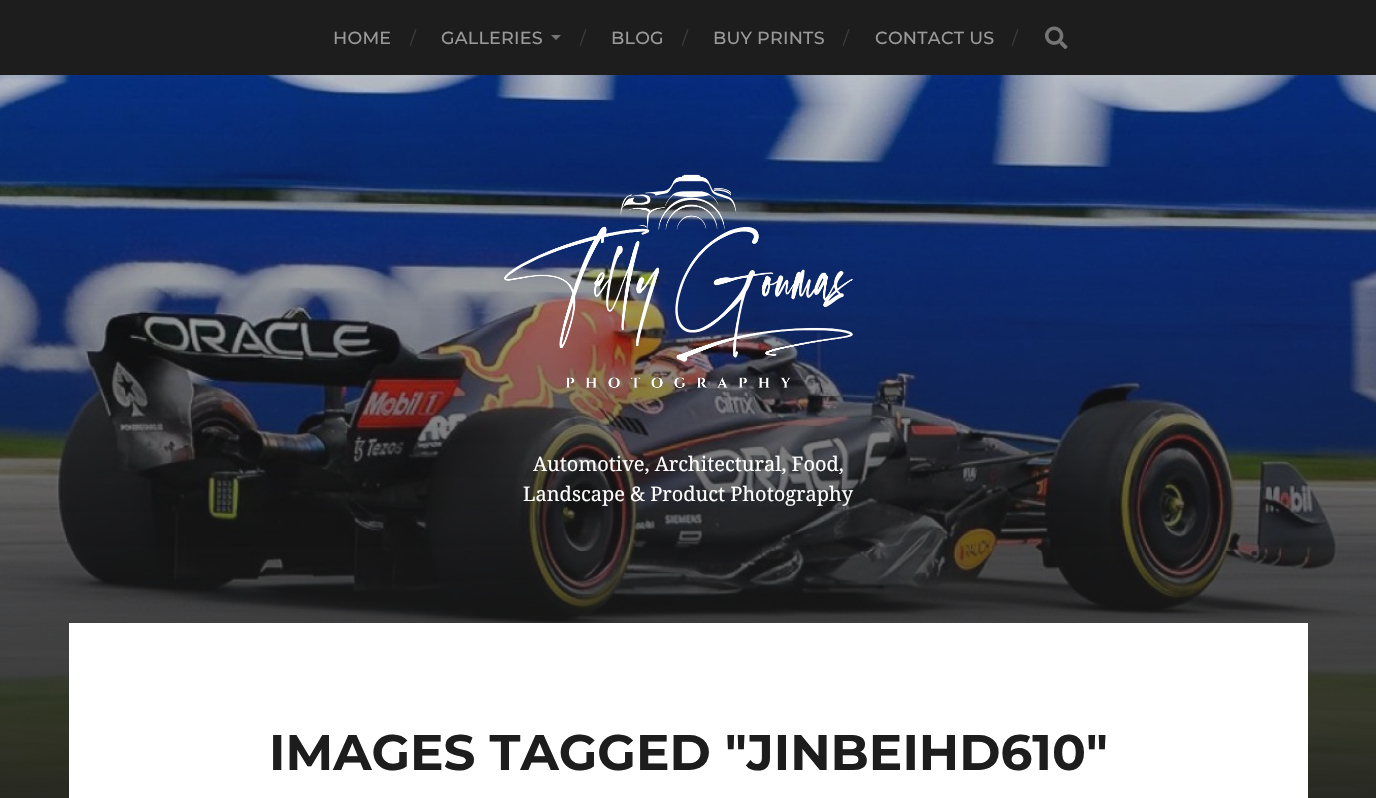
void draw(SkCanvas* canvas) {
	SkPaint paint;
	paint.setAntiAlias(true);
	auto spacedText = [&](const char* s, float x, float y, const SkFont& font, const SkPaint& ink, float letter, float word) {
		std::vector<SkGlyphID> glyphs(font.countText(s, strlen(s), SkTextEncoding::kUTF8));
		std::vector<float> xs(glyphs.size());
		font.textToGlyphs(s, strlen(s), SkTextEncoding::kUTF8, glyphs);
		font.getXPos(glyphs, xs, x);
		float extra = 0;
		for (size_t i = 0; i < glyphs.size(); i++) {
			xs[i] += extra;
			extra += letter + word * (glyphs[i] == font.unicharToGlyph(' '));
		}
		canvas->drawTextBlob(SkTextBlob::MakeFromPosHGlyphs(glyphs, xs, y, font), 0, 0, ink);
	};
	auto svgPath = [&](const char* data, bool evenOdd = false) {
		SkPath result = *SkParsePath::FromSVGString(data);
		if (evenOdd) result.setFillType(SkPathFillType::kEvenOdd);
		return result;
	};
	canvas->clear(0xff1d1d1d);
	SkFont f1(fontMgr->matchFamilyStyle("Montserrat", SkFontStyle(100, SkFontStyle::kNormal_Width, SkFontStyle::kUpright_Slant)), 17.5);
	f1.setSubpixel(true);
	paint.setColor(0xff999999);
	spacedText("HOME", 333, 44, f1, paint, 0.25, 0);
	SkFont f2(fontMgr->matchFamilyStyle("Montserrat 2", SkFontStyle(100, SkFontStyle::kNormal_Width, SkFontStyle::kUpright_Slant)), 17.5);
	f2.setSubpixel(true);
	paint.setColor(0xff3d3d3d);
	canvas->drawString("/", 410, 44, f2, paint);
	paint.setColor(0xff999999);
	spacedText("GALLERIES", 441, 44, f1, paint, 0.25, 0);
	paint.setColor(0xff757575);
	canvas->drawPath(svgPath("M551 35H561L556 40Z"), paint);
	paint.setColor(0xff3d3d3d);
	canvas->drawString("/", 580, 44, f2, paint);
	paint.setColor(0xff999999);
	spacedText("BLOG", 611, 44, f1, paint, 0.25, 0);
	paint.setColor(0xff3d3d3d);
	canvas->drawString("/", 682, 44, f2, paint);
	paint.setColor(0xff999999);
	spacedText("BUY PRINTS", 713, 44, f1, paint, 0.25, 0);
	paint.setColor(0xff3d3d3d);
	canvas->drawString("/", 843, 44, f2, paint);
	paint.setColor(0xff999999);
	spacedText("CONTACT US", 875, 44, f1, paint, 0.25, 0);
	paint.setColor(0xff3d3d3d);
	canvas->drawString("/", 1012, 44, f2, paint);
	canvas->drawImageRect(SkImages::DeferredFromEncodedData(SkData::MakeFromFileName("img1.png")), SkRect::MakeXYWH(1045, 26, 23, 23), SkSamplingOptions());
	canvas->drawImageRect(SkImages::DeferredFromEncodedData(SkData::MakeFromFileName("img2.png")), SkRect::MakeXYWH(0, 75, 1376, 723), SkSamplingOptions());
	canvas->drawImageRect(SkImages::DeferredFromEncodedData(SkData::MakeFromFileName("img3.png")), SkRect::MakeXYWH(504, 174, 349, 214), SkSamplingOptions());
	SkFont f3(fontMgr->matchFamilyStyle("Droid Serif", SkFontStyle::Normal()), 20);
	f3.setSubpixel(true);
	paint.setColor(0xffffffff);
	canvas->drawString("Automotive, Architectural, Food,", 533, 471, f3, paint);
	canvas->drawString("Landscape & Product Photography", 523, 501, f3, paint);
	canvas->drawRect(SkRect::MakeXYWH(69, 623, 1239, 175), paint);
	SkFont f4(fontMgr->matchFamilyStyle("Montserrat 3", SkFontStyle(100, SkFontStyle::kNormal_Width, SkFontStyle::kUpright_Slant)), 50);
	f4.setSubpixel(true);
	paint.setColor(0xff1d1d1d);
	canvas->drawString("IMAGES TAGGED \"JINBEIHD610\"", 269, 770, f4, paint);
}
